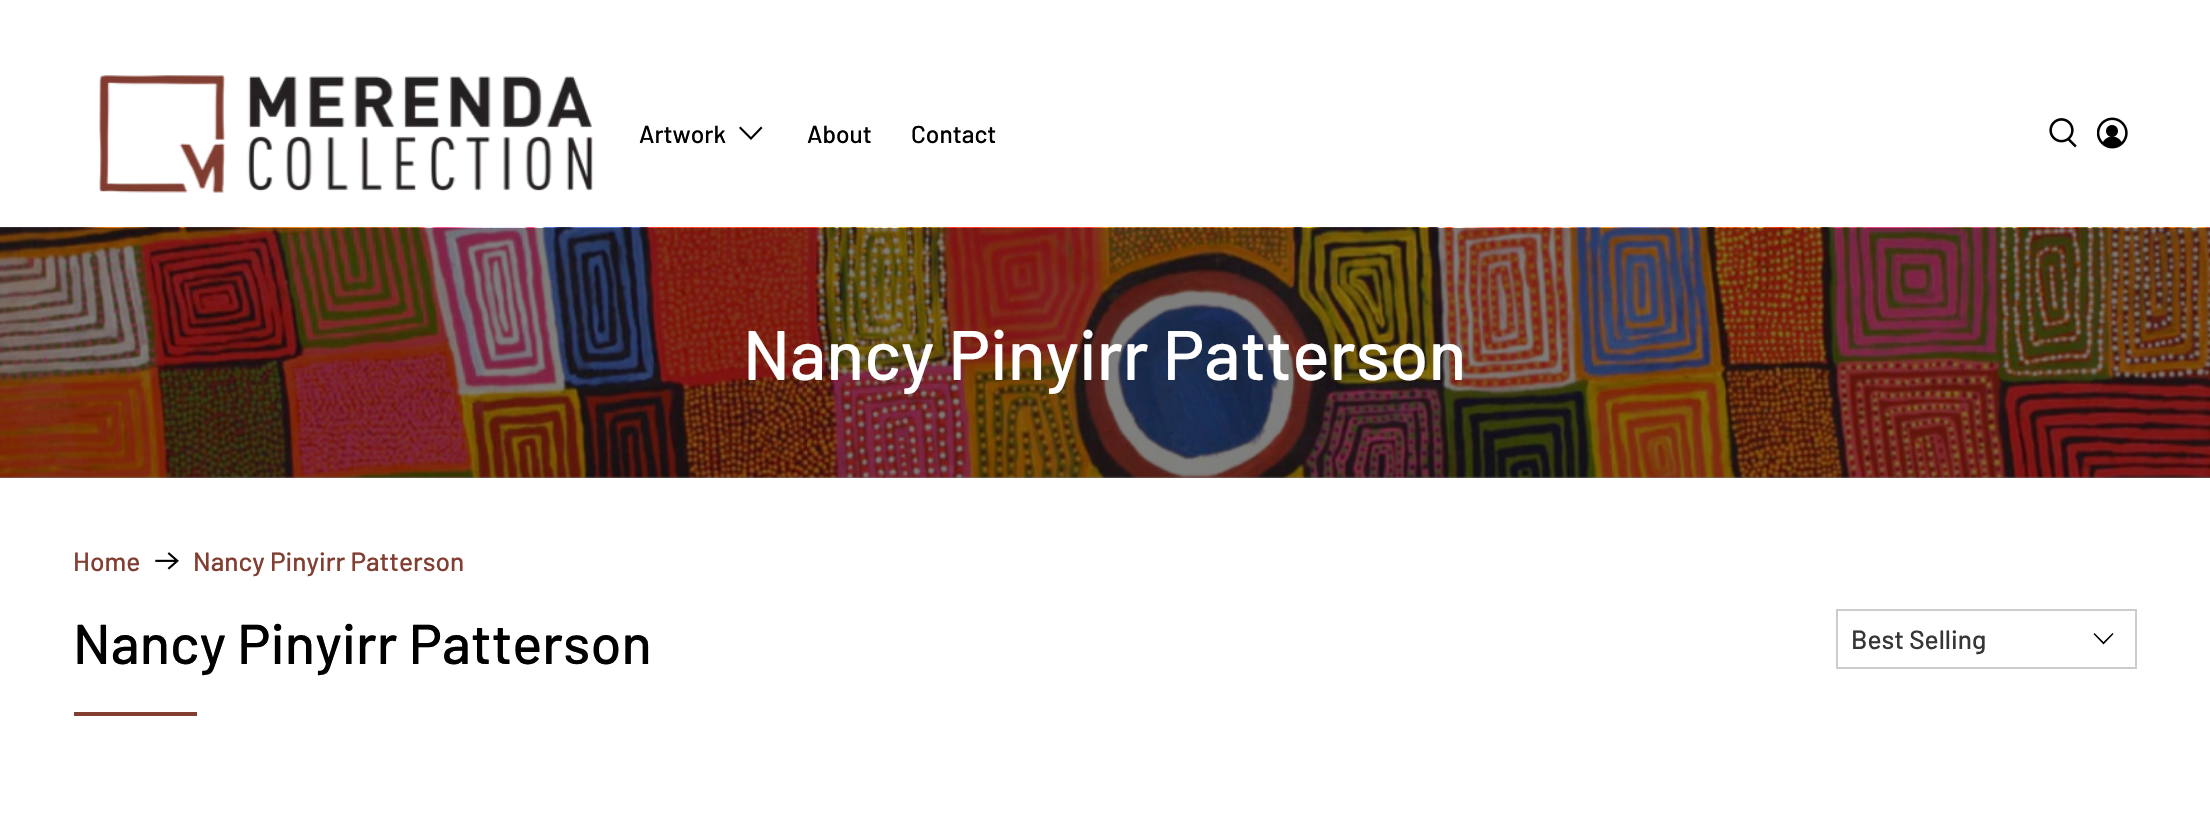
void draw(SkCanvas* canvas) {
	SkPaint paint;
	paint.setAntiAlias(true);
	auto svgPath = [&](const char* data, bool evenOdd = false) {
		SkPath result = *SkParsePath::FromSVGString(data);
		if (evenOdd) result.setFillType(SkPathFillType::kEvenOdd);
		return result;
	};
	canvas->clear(0xffffffff);
	paint.setColor(0xff808080);
	canvas->drawRect(SkRect::MakeXYWH(0, 476, 2210, 2), paint);
	canvas->drawImageRect(SkImages::DeferredFromEncodedData(SkData::MakeFromFileName("img1.png")), SkRect::MakeXYWH(99, 75, 494, 118), SkSamplingOptions());
	SkFont f1(fontMgr->matchFamilyStyle("Barlow", SkFontStyle(500, SkFontStyle::kNormal_Width, SkFontStyle::kUpright_Slant)), 24.5);
	f1.setSubpixel(true);
	paint.setColor(0xff000000);
	canvas->drawString("Artwork", 639, 143, f1, paint);
	canvas->drawPath(svgPath("M751 140L739 128L740.5 126.5L751 137L761 126.5L762.5 128Z"), paint);
	canvas->drawString("About", 807, 143, f1, paint);
	canvas->drawString("Contact", 911, 143, f1, paint);
	canvas->drawImageRect(SkImages::DeferredFromEncodedData(SkData::MakeFromFileName("img2.png")), SkRect::MakeXYWH(2049, 118, 28, 30), SkSamplingOptions());
	canvas->drawImageRect(SkImages::DeferredFromEncodedData(SkData::MakeFromFileName("img3.png")), SkRect::MakeXYWH(2097, 117, 31, 32), SkSamplingOptions());
	canvas->drawImageRect(SkImages::DeferredFromEncodedData(SkData::MakeFromFileName("img4.png")), SkRect::MakeXYWH(0, 227, 2210, 251), SkSamplingOptions());
	SkFont f2(fontMgr->matchFamilyStyle("Barlow", SkFontStyle(500, SkFontStyle::kNormal_Width, SkFontStyle::kUpright_Slant)), 70);
	f2.setSubpixel(true);
	paint.setColor(0xffffffff);
	canvas->drawString("Nancy Pinyirr Patterson", 743, 380, f2, paint);
	SkFont f3(fontMgr->matchFamilyStyle("Barlow", SkFontStyle(500, SkFontStyle::kNormal_Width, SkFontStyle::kUpright_Slant)), 26.25);
	f3.setSubpixel(true);
	paint.setColor(0xff813e31);
	canvas->drawString("Home", 73, 571, f3, paint);
	canvas->drawImageRect(SkImages::DeferredFromEncodedData(SkData::MakeFromFileName("img5.png")), SkRect::MakeXYWH(155, 552, 24, 18), SkSamplingOptions());
	canvas->drawString("Nancy Pinyirr Patterson", 193, 571, f3, paint);
	SkFont f4(fontMgr->matchFamilyStyle("Barlow", SkFontStyle(500, SkFontStyle::kNormal_Width, SkFontStyle::kUpright_Slant)), 56);
	f4.setSubpixel(true);
	paint.setColor(0xff000000);
	canvas->drawString("Nancy Pinyirr Patterson", 73, 664, f4, paint);
	paint.setColor(0xff813e31);
	canvas->drawRect(SkRect::MakeXYWH(74, 712, 123, 4), paint);
	paint.setStroke(true);
	paint.setStrokeWidth(2);
	paint.setColor(0xffcccccc);
	canvas->drawRect(SkRect::MakeXYWH(1837, 610, 299, 58), paint);
	paint.setStroke(false);
	paint.setColor(0xff363636);
	canvas->drawString("Best Selling", 1851, 649, f3, paint);
	paint.setColor(0xff000000);
	canvas->drawPath(svgPath("M2103.5 644.5L2093.5 634L2094.5 633L2103.5 642L2112.5 633L2113.5 634Z"), paint);
}
